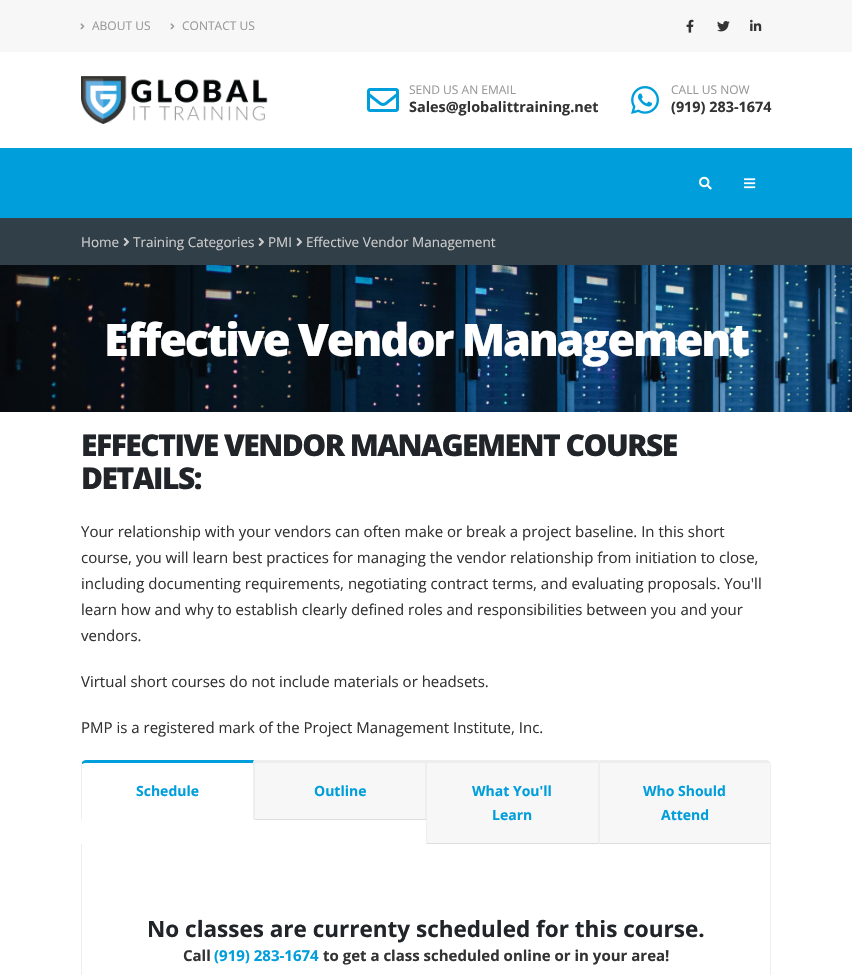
void draw(SkCanvas* canvas) {
	SkPaint paint;
	paint.setAntiAlias(true);
	auto spacedText = [&](const char* s, float x, float y, const SkFont& font, const SkPaint& ink, float letter, float word) {
		std::vector<SkGlyphID> glyphs(font.countText(s, strlen(s), SkTextEncoding::kUTF8));
		std::vector<float> xs(glyphs.size());
		font.textToGlyphs(s, strlen(s), SkTextEncoding::kUTF8, glyphs);
		font.getXPos(glyphs, xs, x);
		float extra = 0;
		for (size_t i = 0; i < glyphs.size(); i++) {
			xs[i] += extra;
			extra += letter + word * (glyphs[i] == font.unicharToGlyph(' '));
		}
		canvas->drawTextBlob(SkTextBlob::MakeFromPosHGlyphs(glyphs, xs, y, font), 0, 0, ink);
	};
	auto svgPath = [&](const char* data, bool evenOdd = false) {
		SkPath result = *SkParsePath::FromSVGString(data);
		if (evenOdd) result.setFillType(SkPathFillType::kEvenOdd);
		return result;
	};
	canvas->clear(0xffffffff);
	paint.setColor(0xfff7f7f7);
	canvas->drawRect(SkRect::MakeXYWH(0, 0, 852, 52), paint);
	canvas->drawImageRect(SkImages::DeferredFromEncodedData(SkData::MakeFromFileName("img1.png")), SkRect::MakeXYWH(80, 23, 5, 7), SkSamplingOptions());
	SkFont f1(fontMgr->matchFamilyStyle("Open Sans", SkFontStyle::Normal()), 12);
	f1.setSubpixel(true);
	paint.setColor(0xff999999);
	canvas->drawString("ABOUT US", 92, 30, f1, paint);
	canvas->drawImageRect(SkImages::DeferredFromEncodedData(SkData::MakeFromFileName("img1.png")), SkRect::MakeXYWH(170, 23, 5, 7), SkSamplingOptions());
	canvas->drawString("CONTACT US", 182, 30, f1, paint);
	canvas->drawImageRect(SkImages::DeferredFromEncodedData(SkData::MakeFromFileName("img2.png")), SkRect::MakeXYWH(686, 19, 8, 14), SkSamplingOptions());
	canvas->drawImageRect(SkImages::DeferredFromEncodedData(SkData::MakeFromFileName("img3.png")), SkRect::MakeXYWH(717, 21, 13, 11), SkSamplingOptions());
	canvas->drawImageRect(SkImages::DeferredFromEncodedData(SkData::MakeFromFileName("img4.png")), SkRect::MakeXYWH(750, 19, 12, 12), SkSamplingOptions());
	canvas->drawImageRect(SkImages::DeferredFromEncodedData(SkData::MakeFromFileName("img5.png")), SkRect::MakeXYWH(81, 76, 187, 48), SkSamplingOptions());
	canvas->drawImageRect(SkImages::DeferredFromEncodedData(SkData::MakeFromFileName("img6.png")), SkRect::MakeXYWH(367, 88, 32, 24), SkSamplingOptions());
	canvas->drawString("SEND US AN EMAIL", 409, 94, f1, paint);
	SkFont f2(fontMgr->matchFamilyStyle("Open Sans", SkFontStyle::Bold()), 14.4);
	f2.setSubpixel(true);
	paint.setColor(0xff333333);
	canvas->drawString("Sales@globalittraining.net", 409, 112, f2, paint);
	canvas->drawImageRect(SkImages::DeferredFromEncodedData(SkData::MakeFromFileName("img7.png")), SkRect::MakeXYWH(631, 86, 28, 28), SkSamplingOptions());
	paint.setColor(0xff999999);
	canvas->drawString("CALL US NOW", 671, 94, f1, paint);
	paint.setColor(0xff333333);
	canvas->drawString("(919) 283-1674", 671, 112, f2, paint);
	paint.setColor(0xff009edb);
	canvas->drawRect(SkRect::MakeXYWH(0, 148, 852, 70), paint);
	canvas->drawImageRect(SkImages::DeferredFromEncodedData(SkData::MakeFromFileName("img8.png")), SkRect::MakeXYWH(699, 176, 13, 14), SkSamplingOptions());
	canvas->drawImageRect(SkImages::DeferredFromEncodedData(SkData::MakeFromFileName("img9.png")), SkRect::MakeXYWH(744, 178, 12, 11), SkSamplingOptions());
	paint.setColor(0xff313f48);
	canvas->drawRect(SkRect::MakeXYWH(0, 218, 852, 47), paint);
	SkFont f3(fontMgr->matchFamilyStyle("Open Sans", SkFontStyle::Normal()), 13.5);
	f3.setSubpixel(true);
	paint.setColor(0xffcccccc);
	canvas->drawString("Home", 81, 247, f3, paint);
	canvas->drawImageRect(SkImages::DeferredFromEncodedData(SkData::MakeFromFileName("img10.png")), SkRect::MakeXYWH(123, 237, 6, 10), SkSamplingOptions());
	canvas->drawString("Training Categories", 133, 247, f3, paint);
	canvas->drawImageRect(SkImages::DeferredFromEncodedData(SkData::MakeFromFileName("img10.png")), SkRect::MakeXYWH(258, 237, 6, 10), SkSamplingOptions());
	canvas->drawString("PMI", 268, 247, f3, paint);
	canvas->drawImageRect(SkImages::DeferredFromEncodedData(SkData::MakeFromFileName("img10.png")), SkRect::MakeXYWH(296, 237, 6, 10), SkSamplingOptions());
	canvas->drawString("Effective Vendor Management", 306, 247, f3, paint);
	canvas->drawImageRect(SkImages::DeferredFromEncodedData(SkData::MakeFromFileName("img11.png")), SkRect::MakeXYWH(0, 265, 852, 147), SkSamplingOptions());
	SkFont f4(fontMgr->matchFamilyStyle("Open Sans", SkFontStyle(800, SkFontStyle::kNormal_Width, SkFontStyle::kUpright_Slant)), 45);
	f4.setSubpixel(true);
	paint.setColor(0xffffffff);
	spacedText("Effective Vendor Management", 104, 356, f4, paint, -2.25, 0);
	SkFont f5(fontMgr->matchFamilyStyle("Open Sans", SkFontStyle(800, SkFontStyle::kNormal_Width, SkFontStyle::kUpright_Slant)), 30);
	f5.setSubpixel(true);
	paint.setColor(0xff212529);
	spacedText("EFFECTIVE VENDOR MANAGEMENT COURSE", 81, 456, f5, paint, -1.5, 0);
	spacedText("DETAILS:", 81, 489, f5, paint, -1.5, 0);
	SkFont f6(fontMgr->matchFamilyStyle("Open Sans", SkFontStyle::Normal()), 15);
	f6.setSubpixel(true);
	paint.setColor(0xff333333);
	canvas->drawString("Your relationship with your vendors can often make or break a project baseline. In this short", 81, 537, f6, paint);
	canvas->drawString("course, you will learn best practices for managing the vendor relationship from initiation to close,", 81, 563, f6, paint);
	canvas->drawString("including documenting requirements, negotiating contract terms, and evaluating proposals. You'll", 81, 589, f6, paint);
	canvas->drawString("learn how and why to establish clearly defined roles and responsibilities between you and your", 81, 615, f6, paint);
	canvas->drawString("vendors.", 81, 641, f6, paint);
	canvas->drawString("Virtual short courses do not include materials or headsets.", 81, 687, f6, paint);
	canvas->drawString("PMP is a registered mark of the Project Management Institute, Inc.", 81, 733, f6, paint);
	paint.setColor(0xff009edb);
	canvas->drawPath(svgPath("M86 760C84 760 83 761 82 762V764L85 763H253L254 760Z"), paint);
	paint.setColor(0xffeeeeee);
	canvas->drawPath(svgPath("M254 760L253 763V819L254 820Z"), paint);
	paint.setColor(0xffffffff);
	canvas->drawPath(svgPath("M254 820L253 819H82L81 820Z"), paint);
	paint.setColor(0xffeeeeee);
	canvas->drawPath(svgPath("M81 820L82 819C82 813 82 765 82 764V762L81 765Z"), paint);
	SkFont f7(fontMgr->matchFamilyStyle("Open Sans", SkFontStyle::Bold()), 14);
	f7.setSubpixel(true);
	paint.setColor(0xff009edb);
	canvas->drawString("Schedule", 136, 796, f7, paint);
	paint.setColor(0xfff7f7f7);
	canvas->drawRect(SkRect::MakeXYWH(255, 763, 170, 56), paint);
	paint.setColor(0xffeeeeee);
	canvas->drawRect(SkRect::MakeXYWH(254, 760, 345, 3), paint);
	canvas->drawRect(SkRect::MakeXYWH(425, 760, 1, 60), paint);
	paint.setColor(0xffdddddd);
	canvas->drawRect(SkRect::MakeXYWH(254, 819, 172, 1), paint);
	paint.setColor(0xffeeeeee);
	canvas->drawRect(SkRect::MakeXYWH(254, 760, 1, 60), paint);
	paint.setColor(0xff009edb);
	canvas->drawString("Outline", 314, 796, f7, paint);
	paint.setColor(0xfff7f7f7);
	canvas->drawRect(SkRect::MakeXYWH(427, 763, 171, 80), paint);
	paint.setColor(0xffeeeeee);
	canvas->drawRect(SkRect::MakeXYWH(598, 760, 1, 84), paint);
	paint.setColor(0xffdddddd);
	canvas->drawRect(SkRect::MakeXYWH(426, 843, 173, 1), paint);
	paint.setColor(0xffeeeeee);
	canvas->drawRect(SkRect::MakeXYWH(426, 760, 1, 84), paint);
	paint.setColor(0xff009edb);
	canvas->drawString("What You'll", 472, 796, f7, paint);
	canvas->drawString("Learn", 492, 820, f7, paint);
	paint.setColor(0xfff7f7f7);
	canvas->drawPath(svgPath("M600 763H766C768 763 770 764 770 765V843H600Z"), paint);
	paint.setColor(0xffeeeeee);
	canvas->drawPath(svgPath("M599 760L600 763H767L770 764V762C769 761 768 760 766 760Z"), paint);
	canvas->drawPath(svgPath("M771 844V765L770 762V764V765V843Z"), paint);
	paint.setColor(0xffdddddd);
	canvas->drawPath(svgPath("M771 844L770 843H600L599 844Z"), paint);
	paint.setColor(0xffeeeeee);
	canvas->drawPath(svgPath("M599 760V844L600 843V763Z"), paint);
	paint.setColor(0xff009edb);
	canvas->drawString("Who Should", 643, 796, f7, paint);
	canvas->drawString("Attend", 661, 820, f7, paint);
	paint.setColor(0xffeeeeee);
	canvas->drawPath(svgPath("M81 844H771V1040C771 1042 769 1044 767 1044H85C83 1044 81 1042 81 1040ZM82 844H770V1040C770 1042 769 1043 767 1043H85C83 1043 82 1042 82 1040Z", true), paint);
	SkFont f8(fontMgr->matchFamilyStyle("Open Sans", SkFontStyle::Bold()), 22.5);
	f8.setSubpixel(true);
	paint.setColor(0xff212529);
	canvas->drawString("No classes are currenty scheduled for this course.", 147, 937, f8, paint);
	SkFont f9(fontMgr->matchFamilyStyle("Open Sans", SkFontStyle::Bold()), 15);
	f9.setSubpixel(true);
	paint.setColor(0xff333333);
	canvas->drawString("Call", 183, 961, f9, paint);
	paint.setColor(0xff009edb);
	canvas->drawString("(919) 283-1674", 214, 961, f9, paint);
	paint.setColor(0xff333333);
	canvas->drawString("to get a class scheduled online or in your area!", 323, 961, f9, paint);
}
